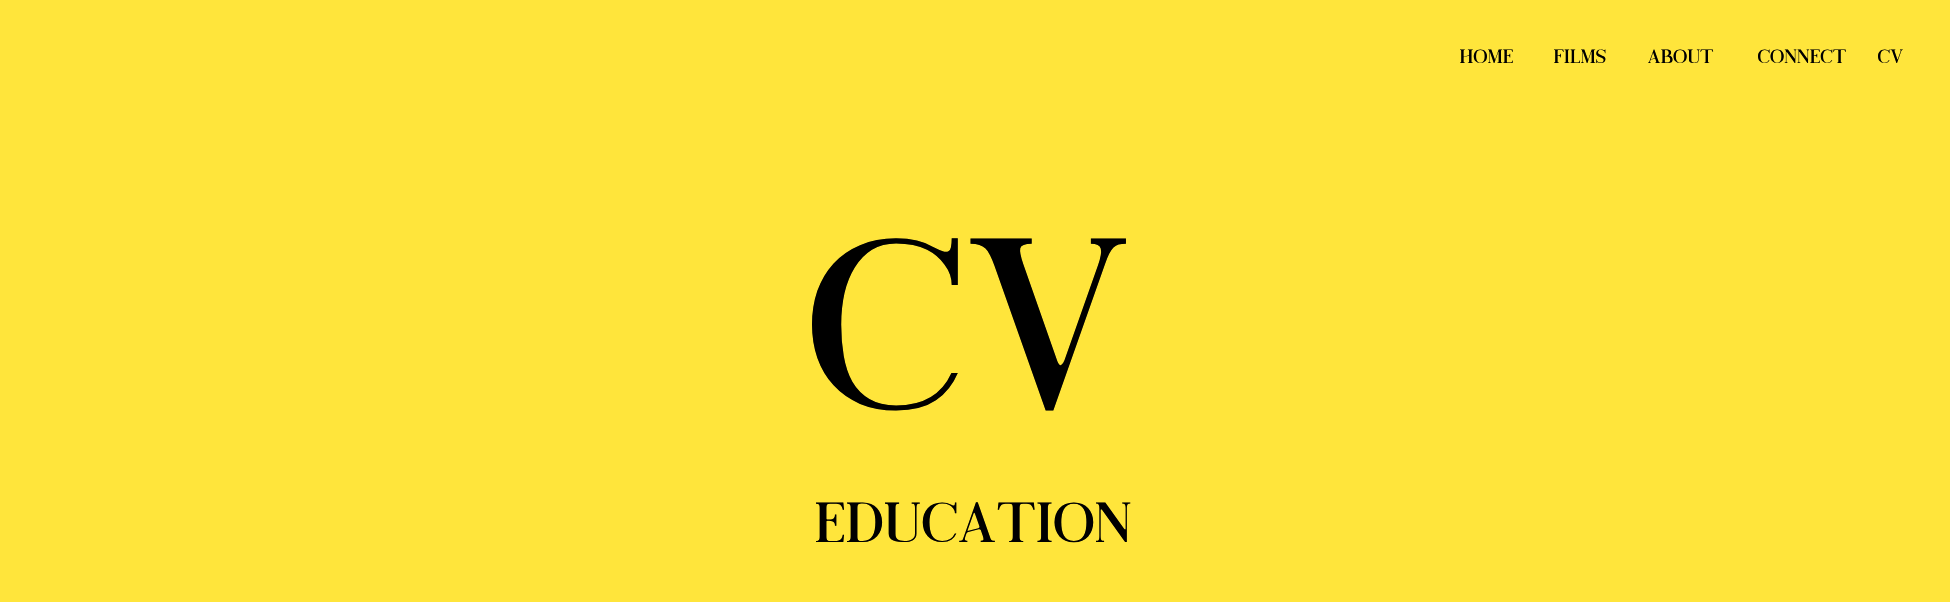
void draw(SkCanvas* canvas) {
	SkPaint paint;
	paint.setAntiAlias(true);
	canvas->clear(0xffffe53b);
	SkFont f1(fontMgr->matchFamilyStyle("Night", SkFontStyle::Normal()), 20);
	f1.setSubpixel(true);
	paint.setColor(0xff000000);
	canvas->drawString("home", 1460, 63, f1, paint);
	canvas->drawString("films", 1554, 63, f1, paint);
	canvas->drawString("about", 1648, 63, f1, paint);
	canvas->drawString("connect", 1758, 63, f1, paint);
	canvas->drawString("cv", 1878, 63, f1, paint);
	SkFont f2(fontMgr->matchFamilyStyle("Night", SkFontStyle::Normal()), 254);
	f2.setSubpixel(true);
	canvas->drawString("CV", 812, 410, f2, paint);
	SkFont f3(fontMgr->matchFamilyStyle("Night", SkFontStyle::Normal()), 58.5);
	f3.setSubpixel(true);
	canvas->drawString("Education", 816, 542, f3, paint);
}
